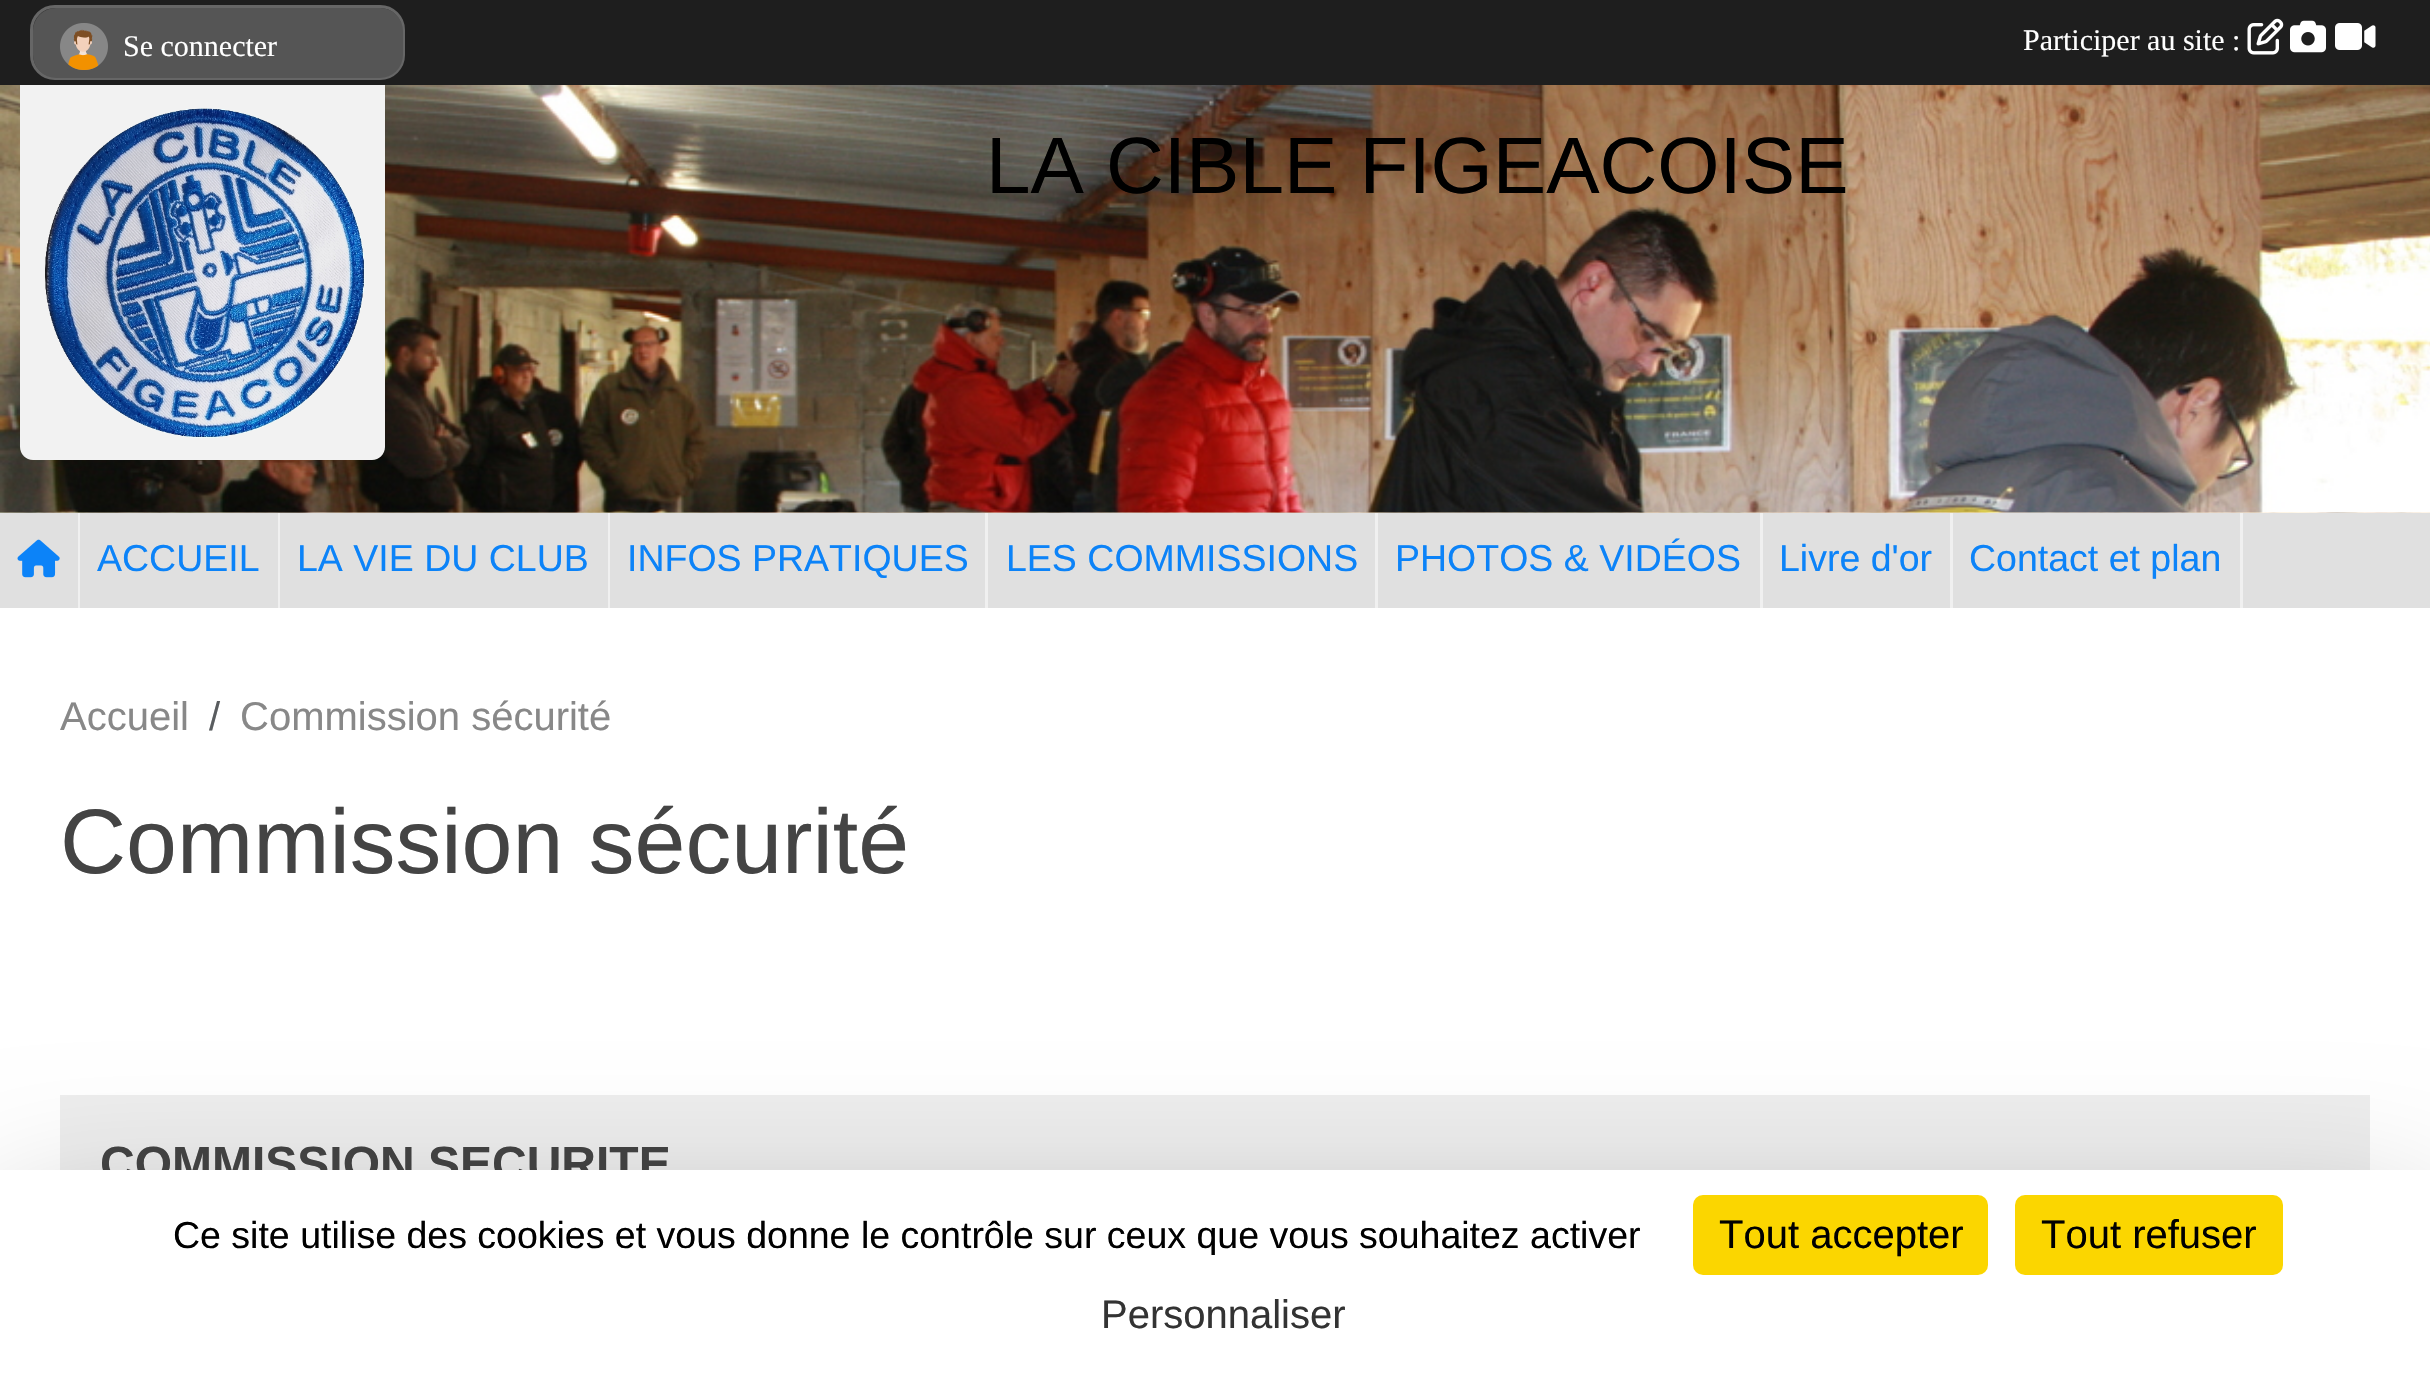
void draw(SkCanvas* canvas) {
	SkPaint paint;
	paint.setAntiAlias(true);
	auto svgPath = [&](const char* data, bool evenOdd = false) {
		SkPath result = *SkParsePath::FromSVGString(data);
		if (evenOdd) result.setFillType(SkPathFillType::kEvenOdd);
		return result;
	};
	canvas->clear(0xffffffff);
	canvas->drawImageRect(SkImages::DeferredFromEncodedData(SkData::MakeFromFileName("img1.png")), SkRect::MakeXYWH(0, 512, 2430, 1), SkSamplingOptions());
	paint.setColor(0xff1e1e1e);
	canvas->drawRect(SkRect::MakeXYWH(0, 0, 2430, 85), paint);
	paint.setColor(0xff333333);
	canvas->drawRoundRect(SkRect::MakeXYWH(31.5, 6.5, 372, 72), 23.5, 23.5, paint);
	paint.setStroke(true);
	paint.setStrokeWidth(3);
	paint.setColor(0xff666666);
	canvas->drawRoundRect(SkRect::MakeXYWH(31.5, 6.5, 372, 72), 23.5, 23.5, paint);
	paint.setStroke(false);
	paint.setColor(0xff555555);
	canvas->drawRoundRect(SkRect::MakeXYWH(33, 8, 370, 70), 23, 23, paint);
	canvas->drawImageRect(SkImages::DeferredFromEncodedData(SkData::MakeFromFileName("img2.png")), SkRect::MakeXYWH(60, 23, 48, 47), SkSamplingOptions());
	SkFont f1(fontMgr->matchFamilyStyle("Liberation Serif", SkFontStyle::Normal()), 30);
	f1.setSubpixel(true);
	paint.setColor(0xffffffff);
	canvas->drawString("Se connecter", 123, 56, f1, paint);
	canvas->drawString("Participer au site :", 2023, 50, f1, paint);
	canvas->drawImageRect(SkImages::DeferredFromEncodedData(SkData::MakeFromFileName("img3.png")), SkRect::MakeXYWH(2247, 18, 37, 37), SkSamplingOptions());
	canvas->drawImageRect(SkImages::DeferredFromEncodedData(SkData::MakeFromFileName("img4.png")), SkRect::MakeXYWH(2290, 20, 36, 33), SkSamplingOptions());
	canvas->drawImageRect(SkImages::DeferredFromEncodedData(SkData::MakeFromFileName("img5.png")), SkRect::MakeXYWH(2335, 23, 41, 27), SkSamplingOptions());
	paint.setColor(0x80ffffff);
	canvas->drawRect(SkRect::MakeXYWH(0, 512, 2430, 1), paint);
	canvas->drawImageRect(SkImages::DeferredFromEncodedData(SkData::MakeFromFileName("img7.png")), SkRect::MakeXYWH(0, 85, 2430, 428), SkSamplingOptions());
	paint.setColor(0xfff2f2f2);
	canvas->drawPath(svgPath("M20 85H385V447C385 454 379 460 372 460H33C26 460 20 454 20 447Z"), paint);
	canvas->drawImageRect(SkImages::DeferredFromEncodedData(SkData::MakeFromFileName("img6.png")), SkRect::MakeXYWH(45, 108, 320, 330), SkSamplingOptions());
	SkFont f2(fontMgr->matchFamilyStyle("Liberation Sans", SkFontStyle::Normal()), 80);
	f2.setSubpixel(true);
	paint.setColor(0xff000000);
	canvas->drawString("LA CIBLE FIGEACOISE", 986, 193, f2, paint);
	paint.setColor(0xffe0e0e0);
	canvas->drawRect(SkRect::MakeXYWH(0, 513, 2430, 95), paint);
	paint.setColor(0xfff0f0f0);
	canvas->drawRect(SkRect::MakeXYWH(78, 513, 2, 95), paint);
	canvas->drawImageRect(SkImages::DeferredFromEncodedData(SkData::MakeFromFileName("img8.png")), SkRect::MakeXYWH(17, 539, 43, 39), SkSamplingOptions());
	canvas->drawRect(SkRect::MakeXYWH(278, 513, 2, 95), paint);
	SkFont f3(fontMgr->matchFamilyStyle("Liberation Sans", SkFontStyle::Normal()), 37.5);
	f3.setSubpixel(true);
	paint.setColor(0xff0c83f8);
	canvas->drawString("ACCUEIL", 97, 571, f3, paint);
	paint.setColor(0xfff0f0f0);
	canvas->drawRect(SkRect::MakeXYWH(608, 513, 2, 95), paint);
	paint.setColor(0xff0c83f8);
	canvas->drawString("LA VIE DU CLUB", 297, 571, f3, paint);
	paint.setColor(0xfff0f0f0);
	canvas->drawRect(SkRect::MakeXYWH(985, 513, 3, 95), paint);
	paint.setColor(0xff0c83f8);
	canvas->drawString("INFOS PRATIQUES", 627, 571, f3, paint);
	paint.setColor(0xfff0f0f0);
	canvas->drawRect(SkRect::MakeXYWH(1375, 513, 3, 95), paint);
	paint.setColor(0xff0c83f8);
	canvas->drawString("LES COMMISSIONS", 1006, 571, f3, paint);
	paint.setColor(0xfff0f0f0);
	canvas->drawRect(SkRect::MakeXYWH(1760, 513, 3, 95), paint);
	paint.setColor(0xff0c83f8);
	canvas->drawString("PHOTOS & VIDÉOS", 1395, 571, f3, paint);
	paint.setColor(0xfff0f0f0);
	canvas->drawRect(SkRect::MakeXYWH(1950, 513, 3, 95), paint);
	paint.setColor(0xff0c83f8);
	canvas->drawString("Livre d'or", 1779, 571, f3, paint);
	paint.setColor(0xfff0f0f0);
	canvas->drawRect(SkRect::MakeXYWH(2240, 513, 3, 95), paint);
	paint.setColor(0xff0c83f8);
	canvas->drawString("Contact et plan", 1969, 571, f3, paint);
	SkFont f4(fontMgr->matchFamilyStyle("Liberation Sans", SkFontStyle::Normal()), 40);
	f4.setSubpixel(true);
	paint.setColor(0xff888888);
	canvas->drawString("Accueil", 60, 730, f4, paint);
	paint.setColor(0xff595c5f);
	canvas->drawString("/", 209, 730, f4, paint);
	paint.setColor(0xff888888);
	canvas->drawString("Commission sécurité", 240, 730, f4, paint);
	SkFont f5(fontMgr->matchFamilyStyle("Liberation Sans", SkFontStyle::Normal()), 91.5);
	f5.setSubpixel(true);
	paint.setColor(0xff444444);
	canvas->drawString("Commission sécurité", 60, 873, f5, paint);
	paint.setColor(0xffeeeeee);
	canvas->drawRect(SkRect::MakeXYWH(60, 1095, 2310, 75), paint);
	SkFont f6(fontMgr->matchFamilyStyle("Liberation Sans", SkFontStyle::Bold()), 48);
	f6.setSubpixel(true);
	paint.setColor(0xff444444);
	canvas->drawString("COMMISSION SECURITE", 100, 1180, f6, paint);
	paint.setColor(0x40000000);
	paint.setMaskFilter(SkMaskFilter::MakeBlur(kNormal_SkBlurStyle, 75));
	canvas->drawRect(SkRect::MakeXYWH(0, 1220, 2430, 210), paint);
	paint.setMaskFilter(nullptr);
	paint.setColor(0xffffffff);
	canvas->drawRect(SkRect::MakeXYWH(0, 1170, 2430, 210), paint);
	canvas->save();
	canvas->clipRect(SkRect::MakeXYWH(148, 1213, 1517, 42));
	paint.setColor(0xff000000);
	canvas->drawString("Ce site utilise des cookies et vous donne le contrôle sur ceux que vous souhaitez activer", 173, 1248, f3, paint);
	canvas->restore();
	paint.setColor(0xfffbd600);
	canvas->drawRoundRect(SkRect::MakeXYWH(1693, 1195, 295, 80), 10, 10, paint);
	paint.setColor(0xff000000);
	canvas->drawString("Tout accepter", 1719, 1248, f4, paint);
	paint.setColor(0xfffbd600);
	canvas->drawRoundRect(SkRect::MakeXYWH(2015, 1195, 268, 80), 10, 10, paint);
	paint.setColor(0xff000000);
	canvas->drawString("Tout refuser", 2041, 1248, f4, paint);
	paint.setColor(0xff333333);
	canvas->drawString("Personnaliser", 1101, 1328, f4, paint);
}
